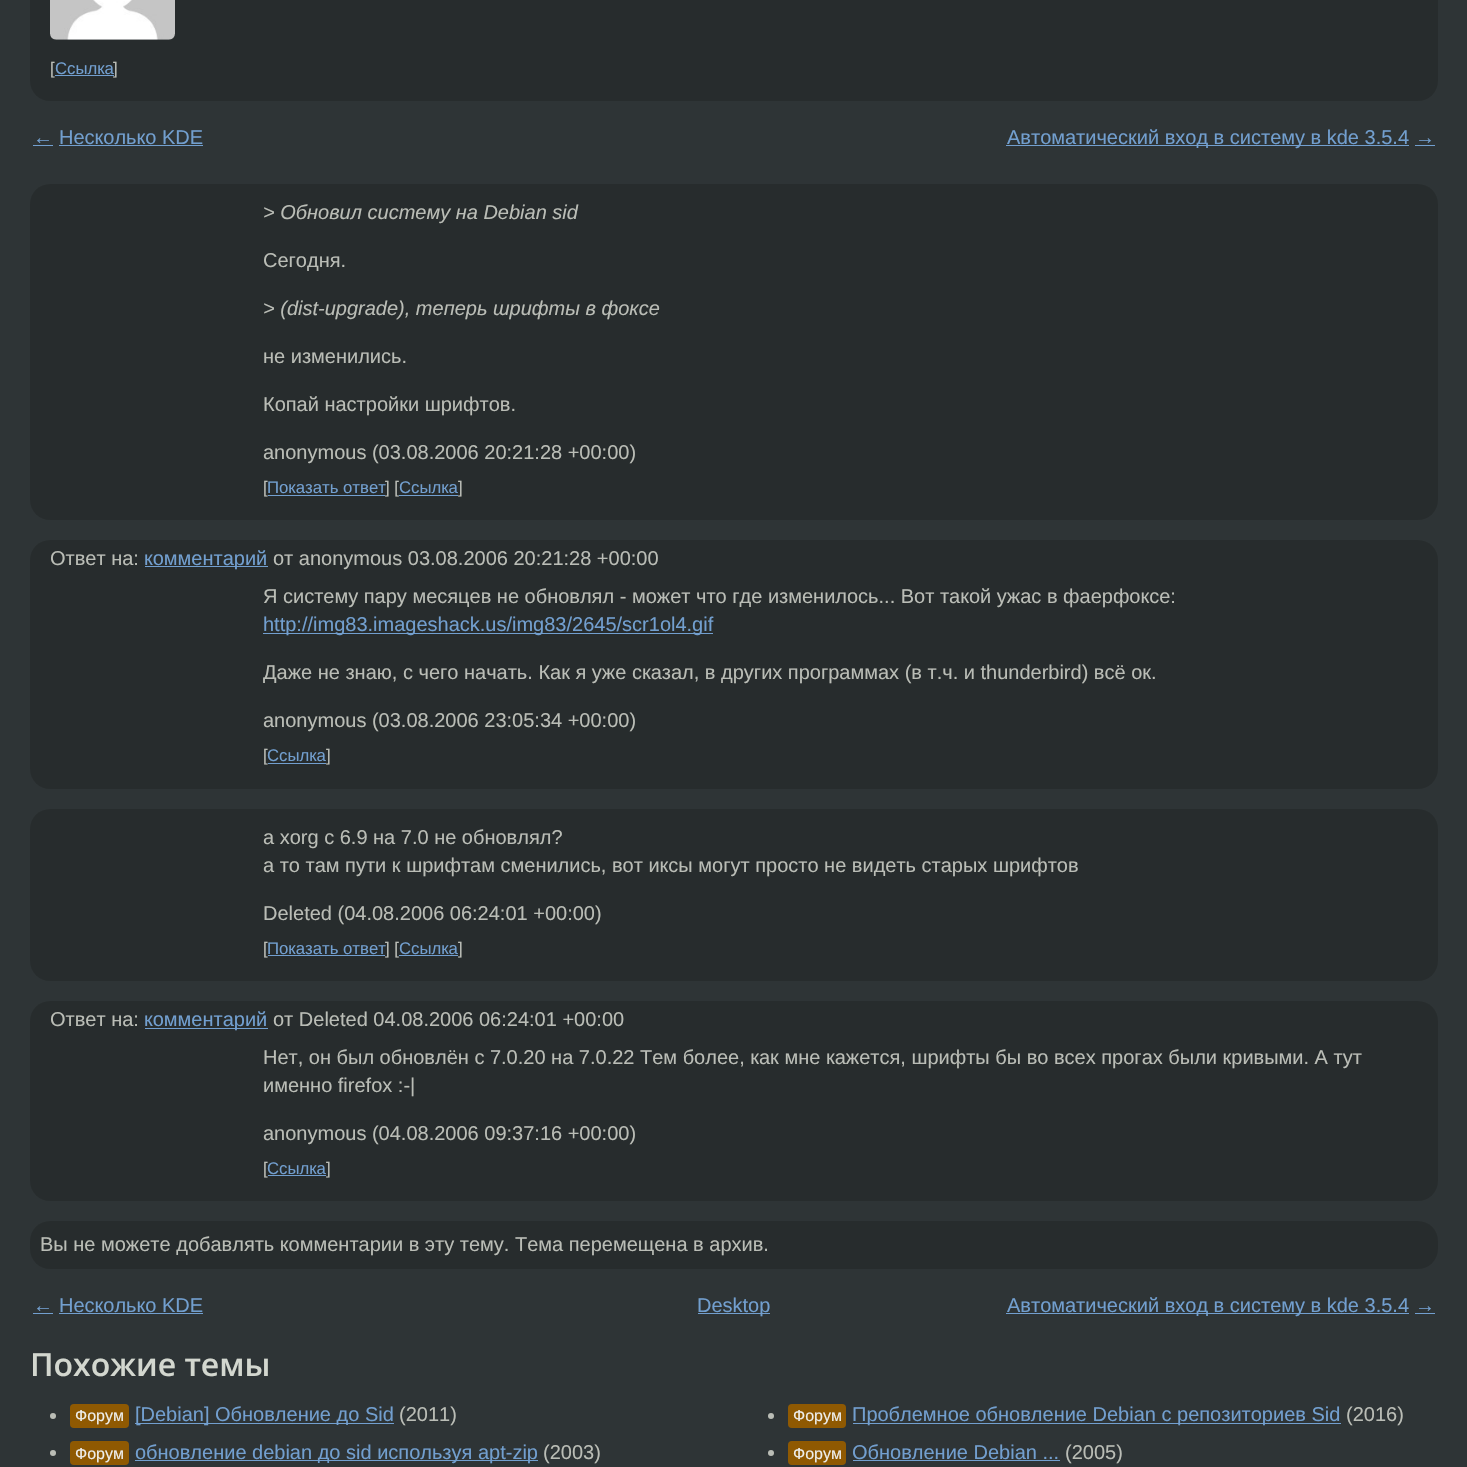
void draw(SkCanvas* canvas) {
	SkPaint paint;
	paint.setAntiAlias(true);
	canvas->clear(0xff2e3436);
	paint.setColor(0xff272c2d);
	canvas->drawRoundRect(SkRect::MakeXYWH(30, -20, 1408, 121), 20, 20, paint);
	canvas->drawImageRect(SkImages::DeferredFromEncodedData(SkData::MakeFromFileName("img1.png")), SkRect::MakeXYWH(50, 0, 125, 40), SkSamplingOptions());
	SkFont f1(fontMgr->matchFamilyStyle("Liberation Sans", SkFontStyle::Normal()), 16.75);
	f1.setSubpixel(true);
	paint.setColor(0xffbabdb6);
	canvas->drawString("[", 50, 74, f1, paint);
	paint.setColor(0xff729fcf);
	canvas->drawRect(SkRect::MakeXYWH(55, 75, 59, 1), paint);
	canvas->drawString("Ссылка", 55, 74, f1, paint);
	paint.setColor(0xffbabdb6);
	canvas->drawString("]", 113, 74, f1, paint);
	SkFont f2(fontMgr->matchFamilyStyle("Liberation Sans", SkFontStyle::Normal()), 20);
	f2.setSubpixel(true);
	paint.setColor(0xff729fcf);
	canvas->drawString("←", 33, 144, f2, paint);
	canvas->drawRect(SkRect::MakeXYWH(33, 145, 20, 1), paint);
	canvas->drawString("Несколько KDE", 59, 144, f2, paint);
	canvas->drawRect(SkRect::MakeXYWH(59, 145, 144, 1), paint);
	canvas->drawRect(SkRect::MakeXYWH(1006, 145, 403, 1), paint);
	canvas->drawString("Автоматический вход в систему в kde 3.5.4", 1007, 144, f2, paint);
	canvas->drawString("→", 1415, 144, f2, paint);
	canvas->drawRect(SkRect::MakeXYWH(1415, 145, 20, 1), paint);
	paint.setColor(0xff272c2d);
	canvas->drawRoundRect(SkRect::MakeXYWH(30, 184, 1408, 336), 20, 20, paint);
	SkFont f3(fontMgr->matchFamilyStyle("Liberation Sans", SkFontStyle::Italic()), 20);
	f3.setSubpixel(true);
	paint.setColor(0xffbabdb6);
	canvas->drawString("> Обновил систему на Debian sid", 263, 219, f3, paint);
	canvas->drawString("Сегодня.", 263, 267, f2, paint);
	canvas->drawString("> (dist-upgrade), теперь шрифты в фоксе", 263, 315, f3, paint);
	canvas->drawString("не изменились.", 263, 363, f2, paint);
	canvas->drawString("Копай настройки шрифтов.", 263, 411, f2, paint);
	canvas->drawString("anonymous (03.08.2006 20:21:28 +00:00)", 263, 459, f2, paint);
	canvas->drawString("[", 263, 493, f1, paint);
	paint.setColor(0xff729fcf);
	canvas->drawString("Показать ответ", 267, 493, f1, paint);
	paint.setColor(0xffbabdb6);
	canvas->drawString("] [", 385, 493, f1, paint);
	paint.setColor(0xff729fcf);
	canvas->drawRect(SkRect::MakeXYWH(268, 495, 117, 1), paint);
	canvas->drawRect(SkRect::MakeXYWH(399, 495, 59, 1), paint);
	canvas->drawString("Ссылка", 399, 493, f1, paint);
	paint.setColor(0xffbabdb6);
	canvas->drawString("]", 458, 493, f1, paint);
	paint.setColor(0xff272c2d);
	canvas->drawRoundRect(SkRect::MakeXYWH(30, 540, 1408, 249), 20, 20, paint);
	paint.setColor(0xffbabdb6);
	canvas->drawString("Ответ на:", 50, 565, f2, paint);
	paint.setColor(0xff729fcf);
	canvas->drawRect(SkRect::MakeXYWH(145, 566, 123, 1), paint);
	canvas->drawString("комментарий", 144, 565, f2, paint);
	paint.setColor(0xffbabdb6);
	canvas->drawString("от anonymous 03.08.2006 20:21:28 +00:00", 273, 565, f2, paint);
	canvas->drawString("Я систему пару месяцев не обновлял - может что где изменилось... Вот такой ужас в фаерфоксе:", 263, 603, f2, paint);
	paint.setColor(0xff729fcf);
	canvas->drawRect(SkRect::MakeXYWH(263, 633, 450, 1), paint);
	canvas->drawString("http://img83.imageshack.us/img83/2645/scr1ol4.gif", 263, 631, f2, paint);
	paint.setColor(0xffbabdb6);
	canvas->drawString("Даже не знаю, с чего начать. Как я уже сказал, в других программах (в т.ч. и thunderbird) всё ок.", 263, 679, f2, paint);
	canvas->drawString("anonymous (03.08.2006 23:05:34 +00:00)", 263, 727, f2, paint);
	canvas->drawString("[", 263, 761, f1, paint);
	paint.setColor(0xff729fcf);
	canvas->drawString("Ссылка", 267, 761, f1, paint);
	canvas->drawRect(SkRect::MakeXYWH(268, 763, 58, 1), paint);
	paint.setColor(0xffbabdb6);
	canvas->drawString("]", 326, 761, f1, paint);
	paint.setColor(0xff272c2d);
	canvas->drawRoundRect(SkRect::MakeXYWH(30, 809, 1408, 172), 20, 20, paint);
	paint.setColor(0xffbabdb6);
	canvas->drawString("а xorg с 6.9 на 7.0 не обновлял?", 263, 844, f2, paint);
	canvas->drawString("а то там пути к шрифтам сменились, вот иксы могут просто не видеть старых шрифтов", 263, 872, f2, paint);
	canvas->drawString("Deleted (04.08.2006 06:24:01 +00:00)", 263, 920, f2, paint);
	canvas->drawString("[", 263, 954, f1, paint);
	paint.setColor(0xff729fcf);
	canvas->drawString("Показать ответ", 267, 954, f1, paint);
	paint.setColor(0xffbabdb6);
	canvas->drawString("] [", 385, 954, f1, paint);
	paint.setColor(0xff729fcf);
	canvas->drawRect(SkRect::MakeXYWH(268, 955, 117, 1), paint);
	canvas->drawRect(SkRect::MakeXYWH(399, 955, 59, 1), paint);
	canvas->drawString("Ссылка", 399, 954, f1, paint);
	paint.setColor(0xffbabdb6);
	canvas->drawString("]", 458, 954, f1, paint);
	paint.setColor(0xff272c2d);
	canvas->drawRoundRect(SkRect::MakeXYWH(30, 1001, 1408, 200), 20, 20, paint);
	paint.setColor(0xffbabdb6);
	canvas->drawString("Ответ на:", 50, 1026, f2, paint);
	paint.setColor(0xff729fcf);
	canvas->drawRect(SkRect::MakeXYWH(145, 1028, 123, 1), paint);
	canvas->drawString("комментарий", 144, 1026, f2, paint);
	paint.setColor(0xffbabdb6);
	canvas->drawString("от Deleted 04.08.2006 06:24:01 +00:00", 273, 1026, f2, paint);
	canvas->drawString("Нет, он был обновлён с 7.0.20 на 7.0.22 Тем более, как мне кажется, шрифты бы во всех прогах были кривыми. А тут", 263, 1064, f2, paint);
	canvas->drawString("именно firefox :-|", 263, 1092, f2, paint);
	canvas->drawString("anonymous (04.08.2006 09:37:16 +00:00)", 263, 1140, f2, paint);
	canvas->drawString("[", 263, 1174, f1, paint);
	paint.setColor(0xff729fcf);
	canvas->drawString("Ссылка", 267, 1174, f1, paint);
	canvas->drawRect(SkRect::MakeXYWH(268, 1175, 58, 1), paint);
	paint.setColor(0xffbabdb6);
	canvas->drawString("]", 326, 1174, f1, paint);
	paint.setColor(0xff272c2d);
	canvas->drawRoundRect(SkRect::MakeXYWH(30, 1221, 1408, 48), 20, 20, paint);
	paint.setColor(0xffbabdb6);
	canvas->drawString("Вы не можете добавлять комментарии в эту тему. Тема перемещена в архив.", 40, 1251, f2, paint);
	paint.setColor(0xff729fcf);
	canvas->drawString("←", 33, 1312, f2, paint);
	canvas->drawRect(SkRect::MakeXYWH(33, 1313, 20, 1), paint);
	canvas->drawString("Несколько KDE", 59, 1312, f2, paint);
	canvas->drawRect(SkRect::MakeXYWH(59, 1313, 144, 1), paint);
	canvas->drawRect(SkRect::MakeXYWH(698, 1313, 72, 1), paint);
	canvas->drawString("Desktop", 697, 1312, f2, paint);
	canvas->drawRect(SkRect::MakeXYWH(1006, 1313, 403, 1), paint);
	canvas->drawString("Автоматический вход в систему в kde 3.5.4", 1007, 1312, f2, paint);
	canvas->drawString("→", 1415, 1312, f2, paint);
	canvas->drawRect(SkRect::MakeXYWH(1415, 1313, 20, 1), paint);
	SkFont f4(fontMgr->matchFamilyStyle("Open Sans", SkFontStyle(600, SkFontStyle::kNormal_Width, SkFontStyle::kUpright_Slant)), 32);
	f4.setSubpixel(true);
	paint.setColor(0xffd3d7cf);
	canvas->drawString("Похожие темы", 30, 1376, f4, paint);
	paint.setColor(0xffbabdb6);
	canvas->drawCircle(53, 1416, 3, paint);
	paint.setColor(0xff8f5902);
	canvas->drawRoundRect(SkRect::MakeXYWH(70, 1404, 59, 24), 4, 4, paint);
	SkFont f5(fontMgr->matchFamilyStyle("Liberation Sans", SkFontStyle::Normal()), 16);
	f5.setSubpixel(true);
	paint.setColor(0xffeeeeec);
	canvas->drawString("Форум", 75, 1421, f5, paint);
	paint.setColor(0xff729fcf);
	canvas->drawRect(SkRect::MakeXYWH(135, 1423, 259, 1), paint);
	canvas->drawString("[Debian] Обновление до Sid", 135, 1421, f2, paint);
	paint.setColor(0xffbabdb6);
	canvas->drawString("(2011)", 399, 1421, f2, paint);
	canvas->drawCircle(53, 1453, 3, paint);
	paint.setColor(0xff8f5902);
	canvas->drawRoundRect(SkRect::MakeXYWH(70, 1441, 59, 24), 4, 4, paint);
	paint.setColor(0xffeeeeec);
	canvas->drawString("Форум", 75, 1459, f5, paint);
	paint.setColor(0xff729fcf);
	canvas->drawRect(SkRect::MakeXYWH(135, 1460, 403, 1), paint);
	canvas->drawString("обновление debian до sid используя apt-zip", 135, 1459, f2, paint);
	paint.setColor(0xffbabdb6);
	canvas->drawString("(2003)", 543, 1459, f2, paint);
	canvas->drawCircle(771, 1416, 3, paint);
	paint.setColor(0xff8f5902);
	canvas->drawRoundRect(SkRect::MakeXYWH(788, 1404, 58, 24), 4, 4, paint);
	paint.setColor(0xffeeeeec);
	canvas->drawString("Форум", 793, 1421, f5, paint);
	paint.setColor(0xff729fcf);
	canvas->drawRect(SkRect::MakeXYWH(853, 1423, 488, 1), paint);
	canvas->drawString("Проблемное обновление Debian с репозиториев Sid", 852, 1421, f2, paint);
	paint.setColor(0xffbabdb6);
	canvas->drawString("(2016)", 1346, 1421, f2, paint);
	canvas->drawCircle(771, 1453, 3, paint);
	paint.setColor(0xff8f5902);
	canvas->drawRoundRect(SkRect::MakeXYWH(788, 1441, 58, 24), 4, 4, paint);
	paint.setColor(0xffeeeeec);
	canvas->drawString("Форум", 793, 1459, f5, paint);
	paint.setColor(0xff729fcf);
	canvas->drawString("Обновление Debian ...", 852, 1459, f2, paint);
	canvas->drawRect(SkRect::MakeXYWH(853, 1460, 207, 1), paint);
	paint.setColor(0xffbabdb6);
	canvas->drawString("(2005)", 1065, 1459, f2, paint);
}
